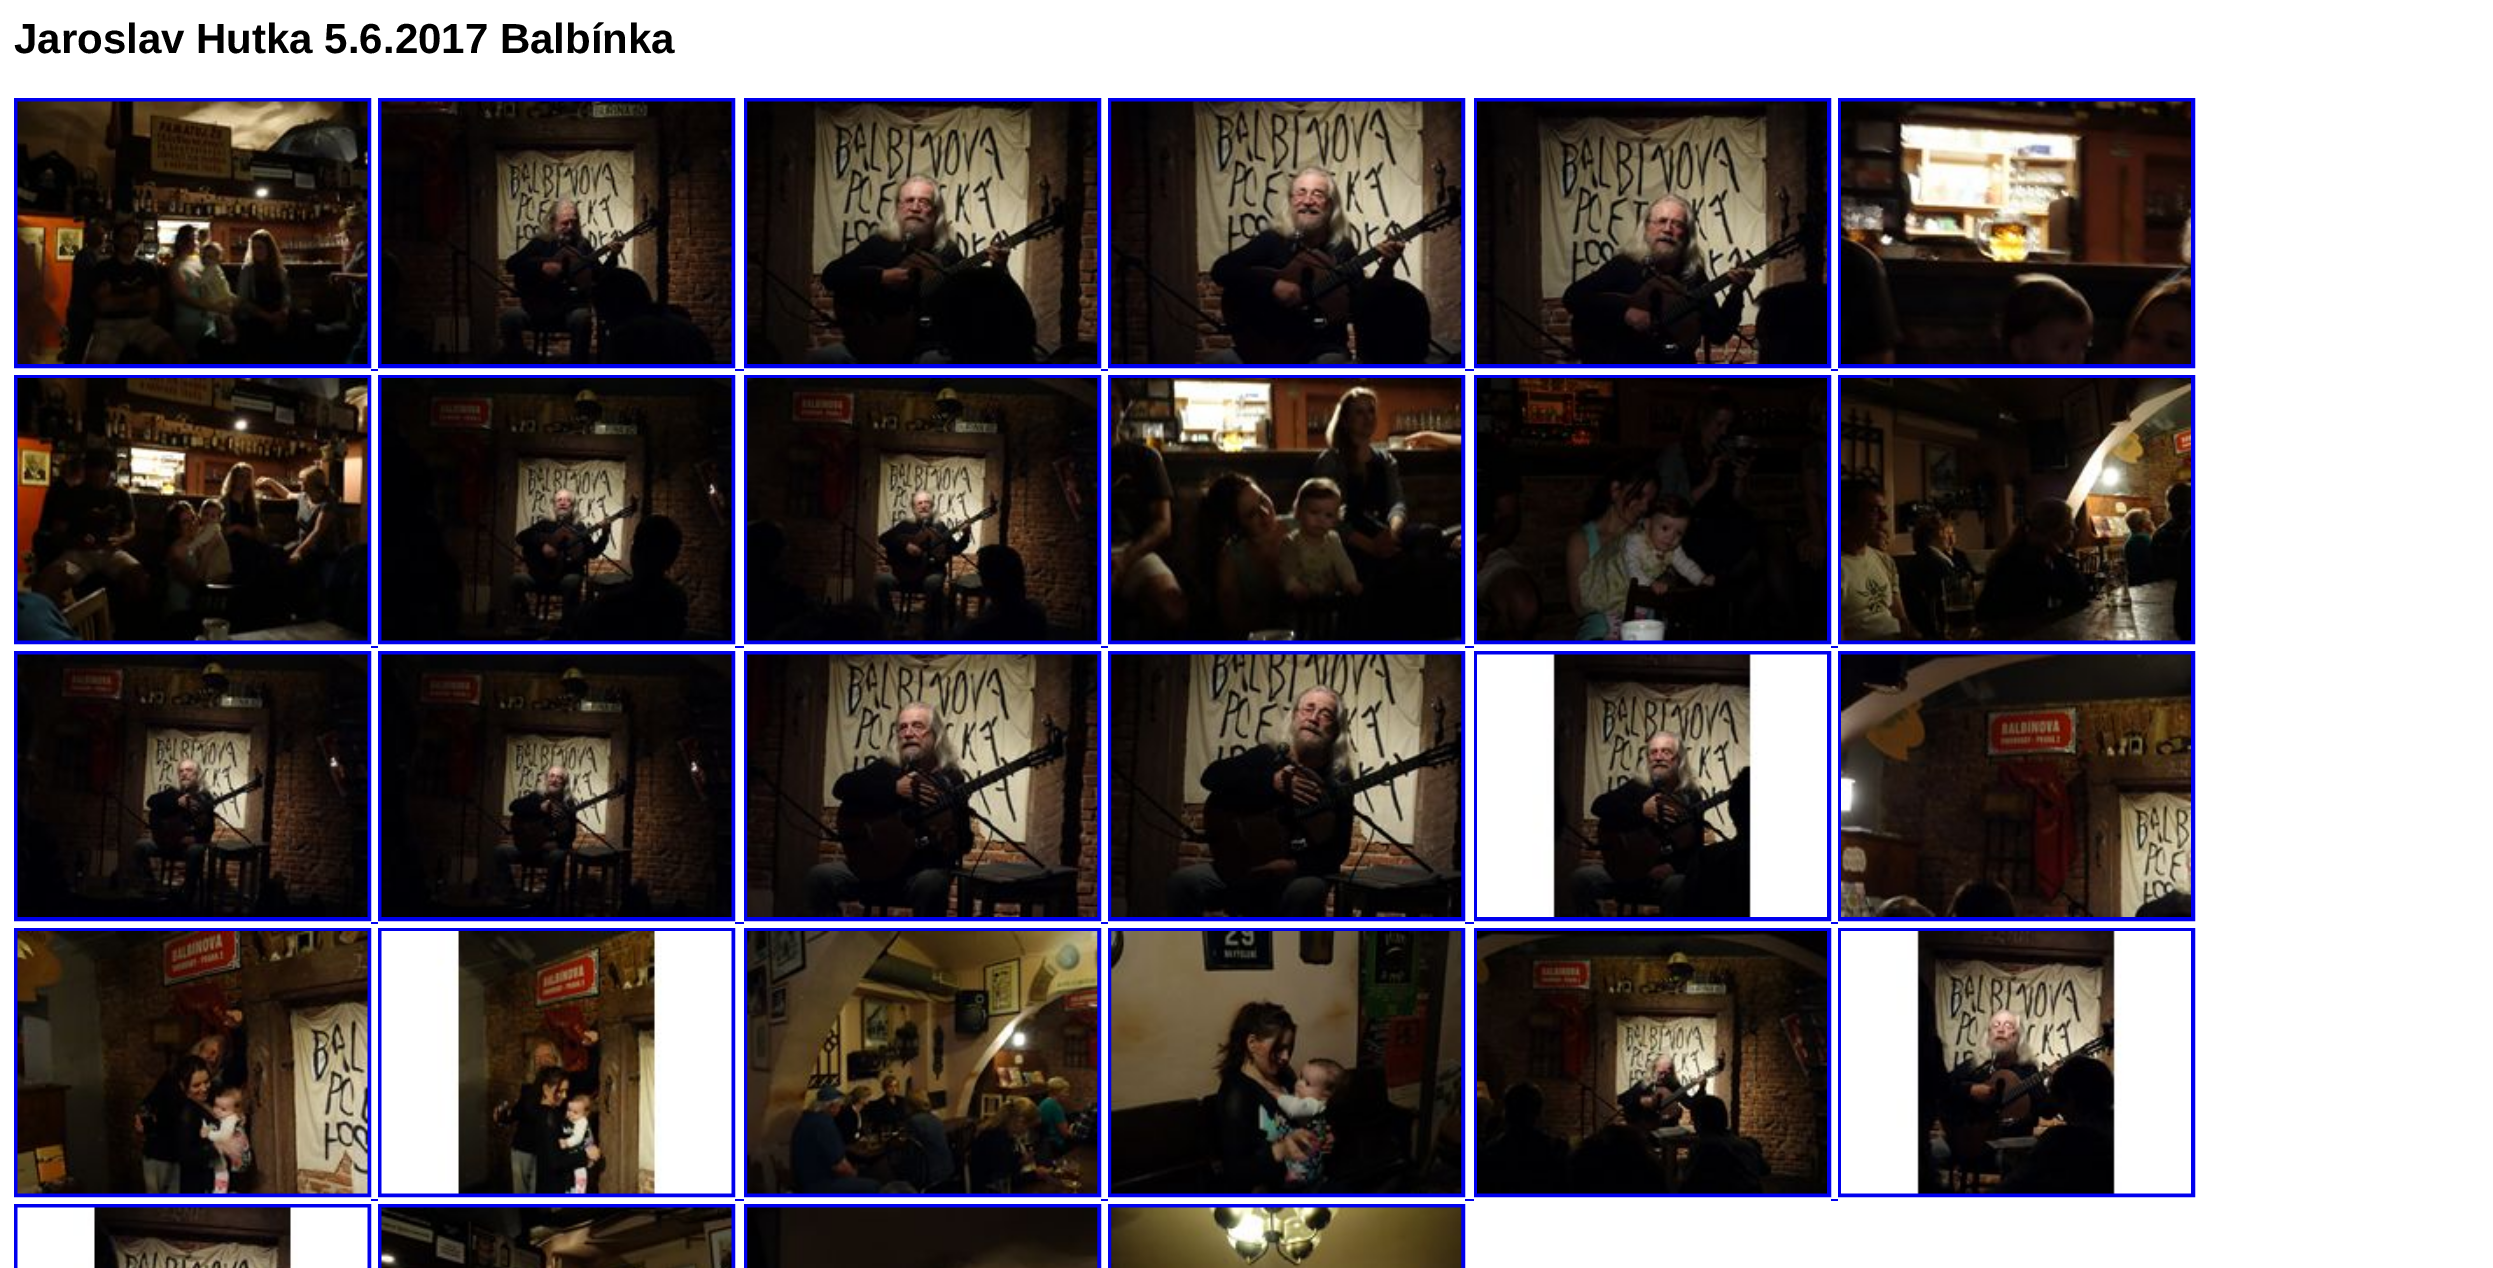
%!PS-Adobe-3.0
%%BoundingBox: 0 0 2493 1268
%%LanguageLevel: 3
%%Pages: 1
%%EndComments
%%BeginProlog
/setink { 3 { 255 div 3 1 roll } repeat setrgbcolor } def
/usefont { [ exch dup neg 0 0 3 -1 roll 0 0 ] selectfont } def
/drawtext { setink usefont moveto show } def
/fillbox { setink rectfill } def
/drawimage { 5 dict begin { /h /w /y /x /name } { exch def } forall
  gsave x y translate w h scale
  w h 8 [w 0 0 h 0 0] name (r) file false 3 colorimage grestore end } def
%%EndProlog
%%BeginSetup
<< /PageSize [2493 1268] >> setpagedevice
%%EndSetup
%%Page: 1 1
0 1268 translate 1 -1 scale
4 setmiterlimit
0 0 2493 1268 255 255 255 fillbox
(Jaroslav Hutka 5.6.2017 Balbínka) 14 53 /LiberationSans-Bold 42 0 0 0 drawtext
0 0 238 setink
4 setlinewidth
16 100 353 266 rectstroke
380 100 353 266 rectstroke
746 100 353 266 rectstroke
1110 100 353 266 rectstroke
1476 100 353 266 rectstroke
1840 100 353 266 rectstroke
(assets/img1.rgb) 17 101 351 263 drawimage
(assets/img2.rgb) 381 101 351 263 drawimage
(assets/img3.rgb) 747 101 351 263 drawimage
(assets/img4.rgb) 1111 101 351 263 drawimage
(assets/img5.rgb) 1477 101 350 263 drawimage
(assets/img6.rgb) 1841 101 350 263 drawimage
371 369 7 2 0 0 238 fillbox
735 369 9 2 0 0 238 fillbox
1101 369 7 2 0 0 238 fillbox
1465 369 9 2 0 0 238 fillbox
1831 369 7 2 0 0 238 fillbox
16 377 353 265 rectstroke
380 377 353 265 rectstroke
746 377 353 265 rectstroke
1110 377 353 265 rectstroke
1476 377 353 265 rectstroke
1840 377 353 265 rectstroke
(assets/img7.rgb) 17 378 351 263 drawimage
(assets/img8.rgb) 381 378 351 263 drawimage
(assets/img9.rgb) 747 378 351 263 drawimage
(assets/img10.rgb) 1111 378 351 263 drawimage
(assets/img11.rgb) 1477 378 350 263 drawimage
(assets/img12.rgb) 1841 378 350 263 drawimage
371 646 7 2 0 0 238 fillbox
735 646 9 2 0 0 238 fillbox
1101 646 7 2 0 0 238 fillbox
1465 646 9 2 0 0 238 fillbox
1831 646 7 2 0 0 238 fillbox
16 653 353 266 rectstroke
380 653 353 266 rectstroke
746 653 353 266 rectstroke
1110 653 353 266 rectstroke
1476 653 353 266 rectstroke
1840 653 353 266 rectstroke
(assets/img13.rgb) 17 654 351 263 drawimage
(assets/img14.rgb) 381 654 351 263 drawimage
(assets/img15.rgb) 747 654 351 263 drawimage
(assets/img16.rgb) 1111 654 351 263 drawimage
(assets/img17.rgb) 1477 654 350 263 drawimage
(assets/img18.rgb) 1841 654 350 263 drawimage
371 922 7 2 0 0 238 fillbox
735 922 9 2 0 0 238 fillbox
1101 922 7 2 0 0 238 fillbox
1465 922 9 2 0 0 238 fillbox
1831 922 7 2 0 0 238 fillbox
16 930 353 265 rectstroke
380 930 353 265 rectstroke
746 930 353 265 rectstroke
1110 930 353 265 rectstroke
1476 930 353 265 rectstroke
1840 930 353 265 rectstroke
(assets/img19.rgb) 17 931 351 263 drawimage
(assets/img20.rgb) 381 931 351 263 drawimage
(assets/img21.rgb) 747 931 351 263 drawimage
(assets/img22.rgb) 1111 931 351 263 drawimage
(assets/img23.rgb) 1477 931 350 263 drawimage
(assets/img24.rgb) 1841 931 350 263 drawimage
371 1199 7 2 0 0 238 fillbox
735 1199 9 2 0 0 238 fillbox
1101 1199 7 2 0 0 238 fillbox
1465 1199 9 2 0 0 238 fillbox
1831 1199 7 2 0 0 238 fillbox
16 1206 353 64 rectstroke
380 1206 353 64 rectstroke
746 1206 353 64 rectstroke
1110 1206 353 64 rectstroke
(assets/img25.rgb) 17 1207 351 61 drawimage
(assets/img26.rgb) 381 1207 351 61 drawimage
(assets/img27.rgb) 747 1207 351 61 drawimage
(assets/img28.rgb) 1111 1207 351 61 drawimage
showpage
%%EOF
